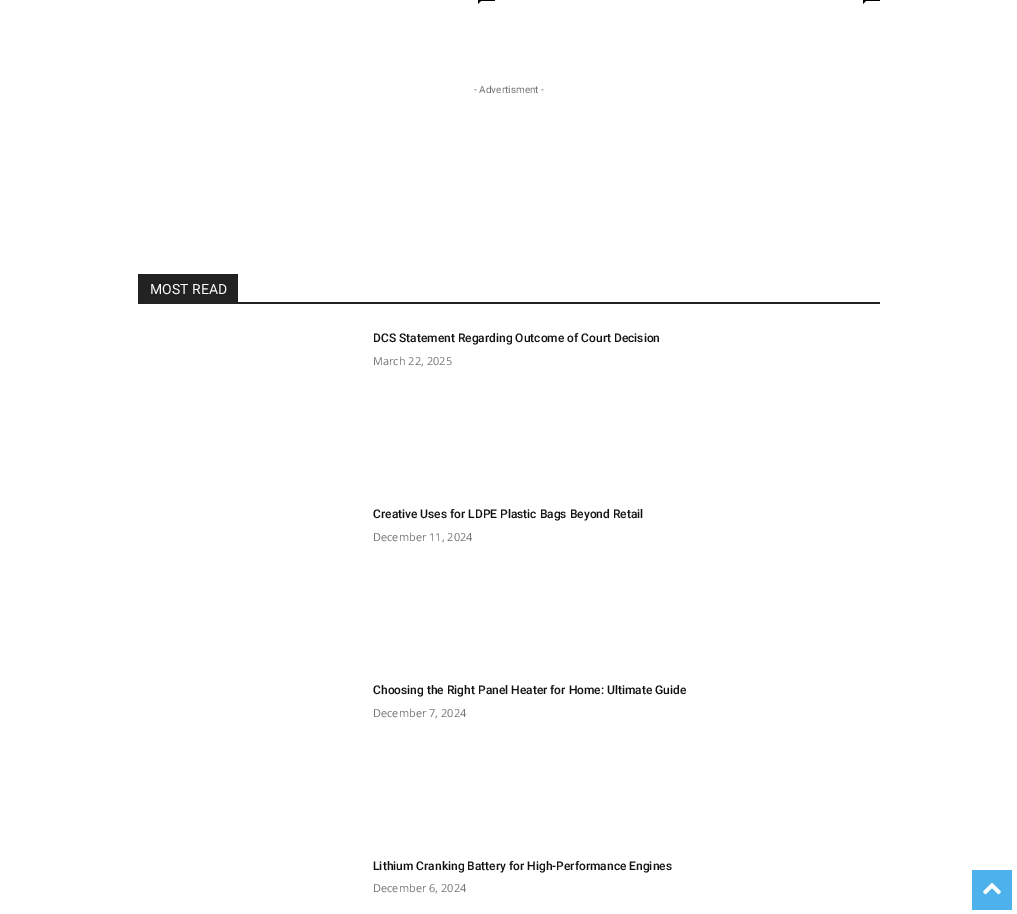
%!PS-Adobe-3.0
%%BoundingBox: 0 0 1017 914
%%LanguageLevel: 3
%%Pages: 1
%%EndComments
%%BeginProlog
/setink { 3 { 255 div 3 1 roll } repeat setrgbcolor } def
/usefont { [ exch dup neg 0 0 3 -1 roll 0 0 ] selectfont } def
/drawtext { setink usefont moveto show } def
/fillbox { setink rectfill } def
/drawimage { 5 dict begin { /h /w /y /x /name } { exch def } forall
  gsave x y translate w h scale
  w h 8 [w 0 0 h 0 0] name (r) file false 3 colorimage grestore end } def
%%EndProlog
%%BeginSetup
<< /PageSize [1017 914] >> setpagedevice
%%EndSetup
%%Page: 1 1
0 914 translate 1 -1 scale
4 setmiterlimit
0 0 1017 914 255 255 255 fillbox
478 0 17 1 0 0 0 fillbox
478 1 moveto 481 1 lineto 478 4 lineto closepath fill
863 0 17 1 0 0 0 fillbox
863 1 moveto 866 1 lineto 863 4 lineto closepath fill
(- Advertisment -) 474 93 /Roboto-Regular 10 118 118 118 drawtext
138 302 742 2 34 34 34 fillbox
138 274 100 28 34 34 34 fillbox
(MOST READ) 150 294 /Roboto-Regular 14 255 255 255 drawtext
(DCS Statement Regarding Outcome of Court Decision) 373 342 /Roboto-Medium 12 17 17 17 drawtext
(March 22, 2025) 373 365 /OpenSans-Regular 11 118 118 118 drawtext
(Creative Uses for LDPE Plastic Bags Beyond Retail) 373 518 /Roboto-Medium 12 17 17 17 drawtext
(December 11, 2024) 373 541 /OpenSans-Regular 11 118 118 118 drawtext
(Choosing the Right Panel Heater for Home: Ultimate Guide) 373 694 /Roboto-Medium 12 17 17 17 drawtext
(December 7, 2024) 373 717 /OpenSans-Regular 11 118 118 118 drawtext
(Lithium Cranking Battery for High-Performance Engines) 373 870 /Roboto-Medium 12 17 17 17 drawtext
(December 6, 2024) 373 892 /OpenSans-Regular 11 118 118 118 drawtext
972 870 40 40 77 178 236 fillbox
(assets/img1.rgb) 983 882 18 13 drawimage
showpage
%%EOF
